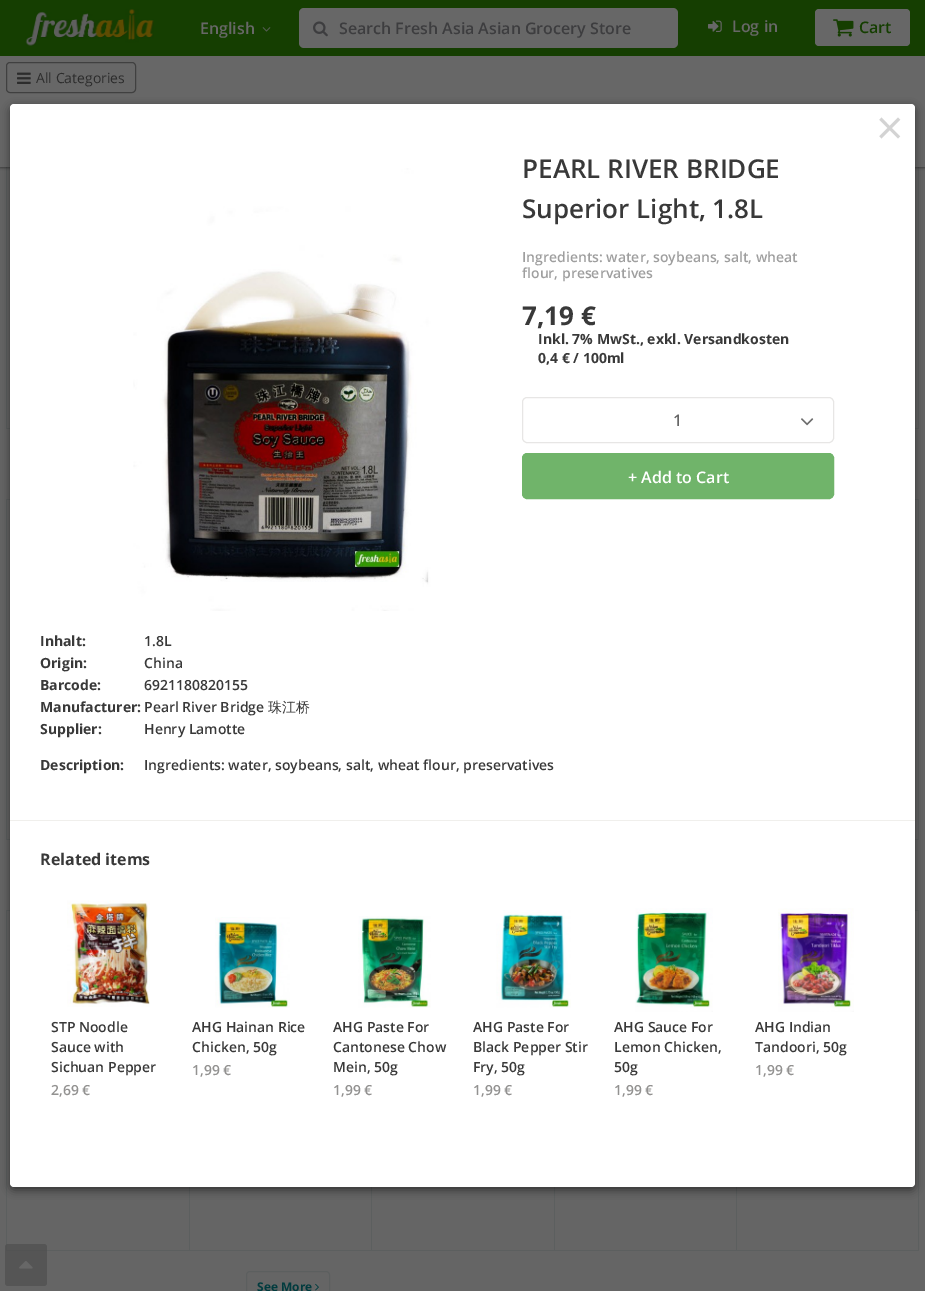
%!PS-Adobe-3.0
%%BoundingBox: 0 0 925 1291
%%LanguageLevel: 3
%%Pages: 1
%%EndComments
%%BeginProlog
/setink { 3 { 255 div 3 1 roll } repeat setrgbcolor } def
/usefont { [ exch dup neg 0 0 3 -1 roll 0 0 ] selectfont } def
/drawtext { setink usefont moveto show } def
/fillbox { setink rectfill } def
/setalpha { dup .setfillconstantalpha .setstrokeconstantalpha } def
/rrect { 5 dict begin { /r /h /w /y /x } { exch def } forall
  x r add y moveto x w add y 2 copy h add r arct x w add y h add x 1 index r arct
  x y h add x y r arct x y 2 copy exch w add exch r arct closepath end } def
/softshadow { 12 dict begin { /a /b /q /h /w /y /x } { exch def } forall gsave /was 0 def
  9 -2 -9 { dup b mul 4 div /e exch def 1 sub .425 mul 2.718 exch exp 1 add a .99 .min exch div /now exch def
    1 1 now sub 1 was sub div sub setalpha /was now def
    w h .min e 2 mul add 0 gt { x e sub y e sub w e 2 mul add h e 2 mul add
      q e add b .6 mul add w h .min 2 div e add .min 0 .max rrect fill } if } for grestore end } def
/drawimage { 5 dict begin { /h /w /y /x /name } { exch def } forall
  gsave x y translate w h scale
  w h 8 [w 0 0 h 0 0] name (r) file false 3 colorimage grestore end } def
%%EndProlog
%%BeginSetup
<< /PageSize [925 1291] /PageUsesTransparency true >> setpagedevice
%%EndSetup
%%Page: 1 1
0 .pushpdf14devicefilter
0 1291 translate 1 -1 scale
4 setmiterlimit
0 0 925 1291 101 101 101 fillbox
6 167 1 262 92 95 95 fillbox
918 167 1 261 92 95 95 fillbox
1 1 1 setink
0 57 925 111 0 1.5 0.26 softshadow
0 57 925 111 0 1 0.16 softshadow
0 0 925 56 21 62 1 fillbox
(assets/img1.rgb) 25 9 129 37 drawimage
(English) 200 34 /OpenSans-SemiBold 16 103 103 103 drawtext
(assets/img2.rgb) 262 27 9 5 drawimage
299 8 379 40 5 rrect fill
(assets/img3.rgb) 313 21 15 16 drawimage
(Search Fresh Asia Asian Grocery Store) 339 34 /OpenSans-SemiBold 16 61 61 63 drawtext
(assets/img4.rgb) 708 20 14 12 drawimage
(Log in) 732 32 /OpenSans-SemiBold 16 103 103 103 drawtext
815 9 95 37 4 rrect fill
(assets/img5.rgb) 833 19 21 18 drawimage
(Cart) 859 33 /OpenSans-SemiBold 16 21 62 1 drawtext
0 56 925 111 103 103 103 fillbox
64 64 64 setink
6.5 62.5 129 30 3.5 rrect stroke
(assets/img6.rgb) 17 72 14 12 drawimage
(All Categories) 36 83 /OpenSans-Regular 14 44 44 44 drawtext
6 428 4 1 92 95 95 fillbox
915 428 4 1 92 95 95 fillbox
6 499 4 1 92 95 95 fillbox
6 499 1 341 92 95 95 fillbox
915 499 4 1 92 95 95 fillbox
918 500 1 339 92 95 95 fillbox
6 839 4 1 92 95 95 fillbox
915 839 4 1 92 95 95 fillbox
6 910 4 1 92 95 95 fillbox
6 910 1 341 92 95 95 fillbox
189 1187 1 64 92 95 95 fillbox
371 1187 1 64 92 95 95 fillbox
554 1187 1 64 92 95 95 fillbox
915 910 4 1 92 95 95 fillbox
736 1187 1 64 92 95 95 fillbox
918 911 1 339 92 95 95 fillbox
0 0 0 setink
10 107 905 1083 4 4.5 0.5 softshadow
255 255 255 setink
10 104 905 1083 4 rrect fill
10 820 905 1 240 239 236 fillbox
(×) 876 145 /OpenSans-Regular 48 211 211 211 drawtext
(flour, preservatives) 522 278 /OpenSans-SemiBold 14 159 159 159 drawtext
(assets/img7.rgb) 133 168 389 443 drawimage
(PEARL RIVER BRIDGE) 522 178 /OpenSans-SemiBold 26 57 57 57 drawtext
(Superior Light, 1.8L) 522 218 /OpenSans-SemiBold 26 57 57 57 drawtext
(Ingredients: water, soybeans, salt, wheat) 522 262 /OpenSans-SemiBold 14 159 159 159 drawtext
(7,19 €) 522 325 /OpenSans-Bold 26 57 57 57 drawtext
(Inkl. 7% MwSt., exkl. Versandkosten) 538 344 /OpenSans-Bold 14 57 57 57 drawtext
(0,4 € / 100ml) 538 363 /OpenSans-Bold 14 57 57 57 drawtext
231 230 229 setink
522.5 397.5 311 45 4.5 rrect stroke
(1) 673 426 /OpenSans-SemiBold 16 103 103 103 drawtext
(assets/img8.rgb) 801 418 13 8 drawimage
112 180 106 setink
522.5 453.5 311 45 4.5 rrect gsave fill grestore
stroke
(+ Add to Cart) 628 483 /OpenSans-SemiBold 16 255 255 255 drawtext
(Inhalt:) 40 646 /OpenSans-Bold 14 57 57 57 drawtext
(1.8L) 144 646 /OpenSans-SemiBold 14 57 57 57 drawtext
(Origin:) 40 668 /OpenSans-Bold 14 57 57 57 drawtext
(China) 144 668 /OpenSans-SemiBold 14 57 57 57 drawtext
(Barcode:) 40 690 /OpenSans-Bold 14 57 57 57 drawtext
(6921180820155) 144 690 /OpenSans-SemiBold 14 57 57 57 drawtext
(Manufacturer:) 40 712 /OpenSans-Bold 14 57 57 57 drawtext
(Pearl River Bridge) 144 712 /OpenSans-SemiBold 14 57 57 57 drawtext
(珠江桥) 268 712 /WenQuanYiZenHei-Medium 14 57 57 57 drawtext
(Supplier:) 40 734 /OpenSans-Bold 14 57 57 57 drawtext
(Henry Lamotte) 144 734 /OpenSans-SemiBold 14 57 57 57 drawtext
(Description:) 40 770 /OpenSans-Bold 14 57 57 57 drawtext
(Ingredients: water, soybeans, salt, wheat flour, preservatives) 144 770 /OpenSans-SemiBold 14 57 57 57 drawtext
(Related items) 40 865 /OpenSans-Bold 16 57 57 57 drawtext
(assets/img9.rgb) 67 900 83 107 drawimage
(STP Noodle) 51 1032 /OpenSans-SemiBold 14 57 57 57 drawtext
(Sauce with) 51 1052 /OpenSans-SemiBold 14 57 57 57 drawtext
(Sichuan Pepper) 51 1072 /OpenSans-SemiBold 14 57 57 57 drawtext
(2,69 €) 51 1095 /OpenSans-SemiBold 14 147 146 145 drawtext
(assets/img10.rgb) 215 917 75 91 drawimage
(AHG Hainan Rice) 192 1032 /OpenSans-SemiBold 14 57 57 57 drawtext
(Chicken, 50g) 192 1052 /OpenSans-SemiBold 14 57 57 57 drawtext
(1,99 €) 192 1075 /OpenSans-SemiBold 14 147 146 145 drawtext
(assets/img11.rgb) 358 916 73 92 drawimage
(AHG Paste For) 333 1032 /OpenSans-SemiBold 14 57 57 57 drawtext
(Cantonese Chow) 333 1052 /OpenSans-SemiBold 14 57 57 57 drawtext
(Mein, 50g) 333 1072 /OpenSans-SemiBold 14 57 57 57 drawtext
(1,99 €) 333 1095 /OpenSans-SemiBold 14 147 146 145 drawtext
(assets/img12.rgb) 496 910 75 98 drawimage
(AHG Paste For) 473 1032 /OpenSans-SemiBold 14 57 57 57 drawtext
(Black Pepper Stir) 473 1052 /OpenSans-SemiBold 14 57 57 57 drawtext
(Fry, 50g) 473 1072 /OpenSans-SemiBold 14 57 57 57 drawtext
(1,99 €) 473 1095 /OpenSans-SemiBold 14 147 146 145 drawtext
(assets/img13.rgb) 635 908 78 104 drawimage
(AHG Sauce For) 614 1032 /OpenSans-SemiBold 14 57 57 57 drawtext
(Lemon Chicken,) 614 1052 /OpenSans-SemiBold 14 57 57 57 drawtext
(50g) 614 1072 /OpenSans-SemiBold 14 57 57 57 drawtext
(1,99 €) 614 1095 /OpenSans-SemiBold 14 147 146 145 drawtext
(assets/img14.rgb) 778 908 76 104 drawimage
(AHG Indian) 755 1032 /OpenSans-SemiBold 14 57 57 57 drawtext
(Tandoori, 50g) 755 1052 /OpenSans-SemiBold 14 57 57 57 drawtext
(1,99 €) 755 1075 /OpenSans-SemiBold 14 147 146 145 drawtext
6 1250 913 1 92 95 95 fillbox
0.7 setalpha
78 78 78 setink
5 1244 42 42 3 rrect fill
1 setalpha
(assets/img15.rgb) 19 1261 14 8 drawimage
92 95 95 setink
246.5 1271.5 83 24 3.5 rrect stroke
(See More) 257 1291 /OpenSans-Bold 12 1 59 62 drawtext
(assets/img16.rgb) 315 1283 4 8 drawimage
.poppdf14devicefilter showpage
%%EOF
